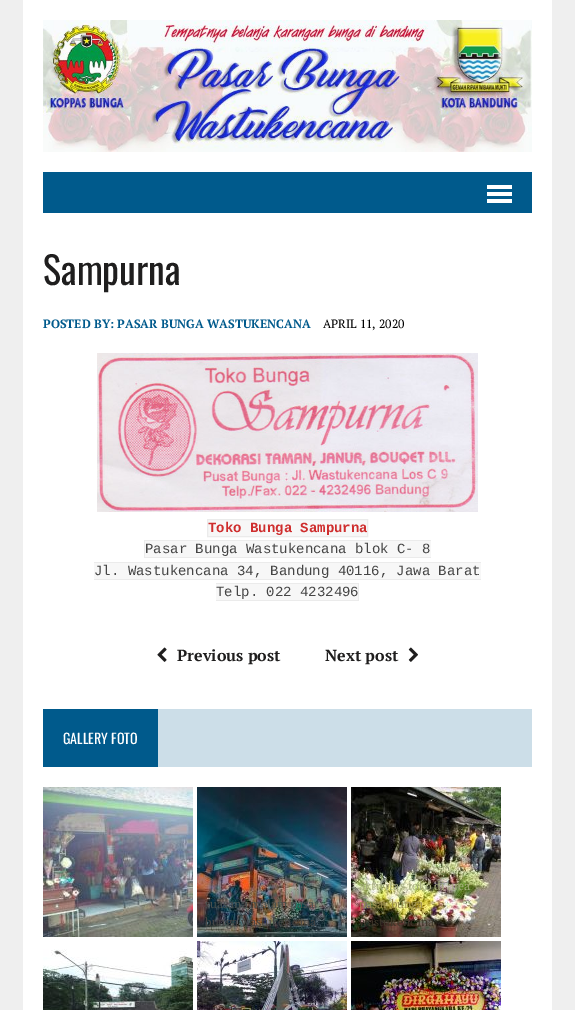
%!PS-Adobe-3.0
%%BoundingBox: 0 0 575 1010
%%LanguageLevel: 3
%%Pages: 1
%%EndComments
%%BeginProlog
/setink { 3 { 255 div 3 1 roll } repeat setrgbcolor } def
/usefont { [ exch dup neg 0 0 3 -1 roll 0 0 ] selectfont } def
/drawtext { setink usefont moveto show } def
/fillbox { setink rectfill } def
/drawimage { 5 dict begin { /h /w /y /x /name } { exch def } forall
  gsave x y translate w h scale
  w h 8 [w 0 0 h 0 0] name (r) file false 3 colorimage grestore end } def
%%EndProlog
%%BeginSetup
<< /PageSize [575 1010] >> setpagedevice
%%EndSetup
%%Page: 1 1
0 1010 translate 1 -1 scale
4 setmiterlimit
0 0 575 1010 239 239 239 fillbox
23 0 529 1010 255 255 255 fillbox
(assets/img1.rgb) 43 20 489 132 drawimage
43 172 489 41 0 90 140 fillbox
487 185 25 4 255 255 255 fillbox
487 192 25 4 255 255 255 fillbox
487 199 25 4 255 255 255 fillbox
(Sampurna) 43 285 /Oswald-Regular 38 31 30 30 drawtext
(POSTED BY: PASAR BUNGA WASTUKENCANA) 43 328 /PTSerif-Bold 12 0 90 140 drawtext
(APRIL 11, 2020) 323 328 /PTSerif-Regular 12 0 0 0 drawtext
(assets/img2.rgb) 97 353 381 159 drawimage
247 247 247 setink
207.5 519.5 moveto 367.5 519.5 lineto 367.5 536.5 lineto 207.5 536.5 lineto closepath gsave fill grestore
235 235 235 setink
stroke
(Toko Bunga Sampurna) 208 532 /LiberationMono-Bold 14 207 46 46 drawtext
145 541 286 16 247 247 247 fillbox
(Pasar Bunga Wastukencana blok C- 8) 145 553 /LiberationMono-Regular 14 69 69 69 drawtext
144 540 287 1 235 235 235 fillbox
144 557 287 1 235 235 235 fillbox
144 540 1 18 235 235 235 fillbox
94 563 387 16 247 247 247 fillbox
(Jl. Wastukencana 34, Bandung 40116, Jawa Barat) 94 575 /LiberationMono-Regular 14 69 69 69 drawtext
94 562 387 1 235 235 235 fillbox
94 579 387 1 235 235 235 fillbox
216 584 142 16 247 247 247 fillbox
(Telp. 022 4232496) 216 596 /LiberationMono-Regular 14 69 69 69 drawtext
216 583 142 1 235 235 235 fillbox
216 600 142 1 235 235 235 fillbox
358 583 1 18 235 235 235 fillbox
(assets/img3.rgb) 157 647 10 15 drawimage
(Previous post) 177 661 /PTSerif-Bold 16 31 30 30 drawtext
(Next post) 325 661 /PTSerif-Bold 16 31 30 30 drawtext
(assets/img4.rgb) 408 647 10 15 drawimage
158 709 374 58 204 222 232 fillbox
43 709 115 58 0 90 140 fillbox
(GALLERY FOTO) 63 744 /Oswald-Regular 14 255 255 255 drawtext
(assets/img5.rgb) 43 787 150 150 drawimage
(assets/img6.rgb) 197 787 150 150 drawimage
(suasana malam pasar) 205 908 /PTSerif-Regular 12 72 80 78 drawtext
(bunga wastukencana) 205 926 /PTSerif-Regular 12 69 69 69 drawtext
(assets/img7.rgb) 351 787 150 150 drawimage
(aktivitas toko di area) 359 890 /PTSerif-Regular 12 167 174 126 drawtext
(pasar bunga) 359 908 /PTSerif-Regular 12 157 143 80 drawtext
(wastukencana) 359 926 /PTSerif-Regular 12 63 55 42 drawtext
(assets/img8.rgb) 43 949 150 61 drawimage
(assets/img9.rgb) 197 941 150 69 drawimage
(assets/img10.rgb) 351 941 150 69 drawimage
showpage
%%EOF
